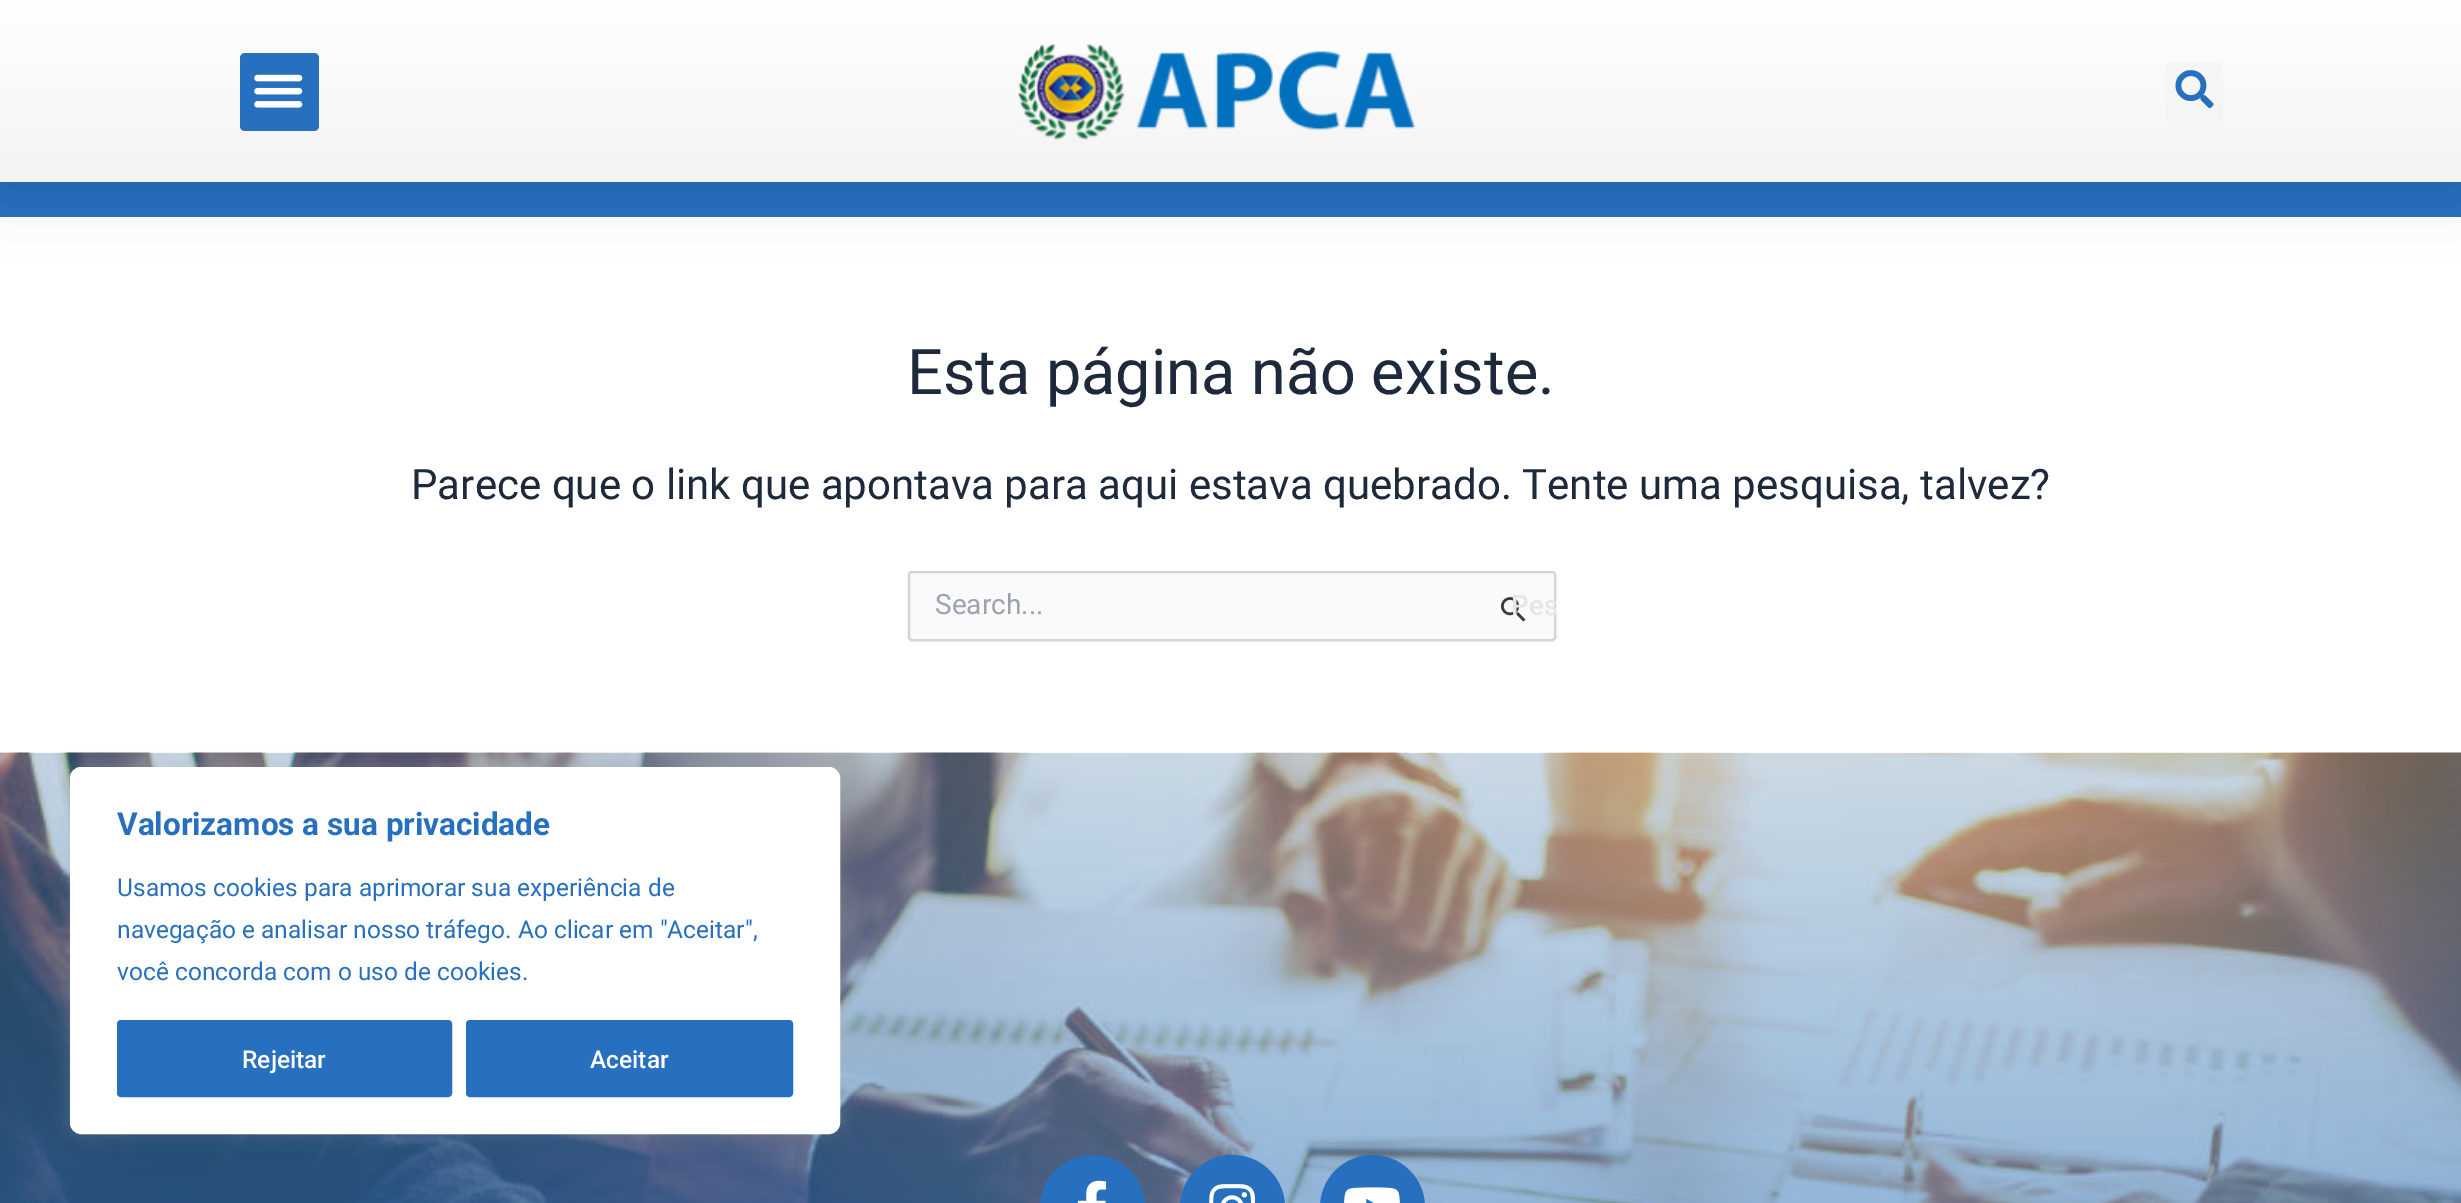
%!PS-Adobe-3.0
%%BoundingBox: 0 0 2461 1203
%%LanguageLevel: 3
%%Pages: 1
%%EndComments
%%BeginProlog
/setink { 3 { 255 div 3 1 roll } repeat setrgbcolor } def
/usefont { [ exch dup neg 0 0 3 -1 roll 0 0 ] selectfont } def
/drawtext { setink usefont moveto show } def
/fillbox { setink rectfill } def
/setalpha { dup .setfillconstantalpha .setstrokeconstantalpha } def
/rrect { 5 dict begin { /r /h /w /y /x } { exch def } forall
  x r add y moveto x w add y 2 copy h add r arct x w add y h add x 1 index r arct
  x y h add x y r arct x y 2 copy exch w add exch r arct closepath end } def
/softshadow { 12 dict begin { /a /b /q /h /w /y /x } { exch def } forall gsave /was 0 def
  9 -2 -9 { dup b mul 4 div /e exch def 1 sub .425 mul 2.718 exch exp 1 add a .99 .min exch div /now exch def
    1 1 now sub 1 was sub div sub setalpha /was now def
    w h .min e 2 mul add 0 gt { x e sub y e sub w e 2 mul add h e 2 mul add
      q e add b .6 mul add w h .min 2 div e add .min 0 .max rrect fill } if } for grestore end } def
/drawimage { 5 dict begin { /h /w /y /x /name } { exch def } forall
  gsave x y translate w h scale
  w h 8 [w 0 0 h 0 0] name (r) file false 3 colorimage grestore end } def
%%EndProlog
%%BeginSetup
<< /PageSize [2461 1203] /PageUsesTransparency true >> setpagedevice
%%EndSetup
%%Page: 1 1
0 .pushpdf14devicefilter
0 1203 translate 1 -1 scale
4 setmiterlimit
0 0 2461 1203 255 255 255 fillbox
0 182 2461 35 39 112 191 fillbox
0 0 0 setink
0 0 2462 182 0 35 0.16 softshadow
gsave 0 0 moveto 2461 0 lineto 2461 182 lineto 0 182 lineto closepath clip newpath
<< /ShadingType 2 /ColorSpace /DeviceRGB /Coords [1231 0 1231 182] /Extend [true true] /Function << /FunctionType 2 /Domain [0 1] /C0 [1 1 1] /C1 [0.953 0.953 0.953] /N 1 >> >> shfill grestore
39 112 191 setink
240 53 79 78 5 rrect fill
(assets/img1.rgb) 254 74 49 34 drawimage
(assets/img2.rgb) 1018 44 397 96 drawimage
245 245 243 setink
2165 63 58 58 5 rrect fill
(assets/img3.rgb) 2175 70 39 39 drawimage
(Esta página não existe.) 907 394 /Roboto-Regular 63 30 41 59 drawtext
(Parece que o link que apontava para aqui estava quebrado. Tente uma pesquisa, talvez?) 411 499 /Roboto-Regular 42 30 41 59 drawtext
0 0 0 setink
908 572 648 70 4 2 0.05 softshadow
250 250 250 setink
909 572 646 68 3 rrect gsave fill grestore
209 213 219 setink
2 setlinewidth
stroke
(Search...) 935 614 /Roboto-Regular 28 156 163 175 drawtext
(assets/img4.rgb) 1501 597 25 25 drawimage
gsave
1477 571 79 73 4 rrect clip newpath
(Pes) 1511 615 /Roboto-Medium 28 229 230 230 drawtext
grestore
(assets/img5.rgb) 0 752 2461 451 drawimage
39 112 191 setink
1040 1155 105 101 52.5 rrect fill
(assets/img6.rgb) 1077 1180 30 23 drawimage
1180 1155 105 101 52.5 rrect fill
(assets/img7.rgb) 1209 1184 46 19 drawimage
1320 1155 105 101 52.5 rrect fill
(assets/img8.rgb) 1344 1187 56 16 drawimage
172 171 171 setink
70 765 770 367 11 9 0.3 softshadow
255 255 255 setink
71 768 768 365 10 rrect gsave fill grestore
stroke
(Valorizamos a sua privacidade) 117 835 /Roboto-Bold 31.5 39 112 191 drawtext
(Usamos cookies para aprimorar sua experiência de) 117 896 /Roboto-Regular 24.5 39 112 191 drawtext
(navegação e analisar nosso tráfego. Ao clicar em "Aceitar",) 117 938 /Roboto-Regular 24.5 39 112 191 drawtext
(você concorda com o uso de cookies.) 117 980 /Roboto-Regular 24.5 39 112 191 drawtext
119 1022 331 73 2 rrect gsave fill grestore
4 setlinewidth
stroke
(Rejeitar) 242 1068 /Roboto-Medium 24.5 255 255 255 drawtext
39 112 191 setink
468 1022 323 73 2 rrect gsave fill grestore
stroke
(Aceitar) 590 1068 /Roboto-Medium 24.5 255 255 255 drawtext
.poppdf14devicefilter showpage
%%EOF
